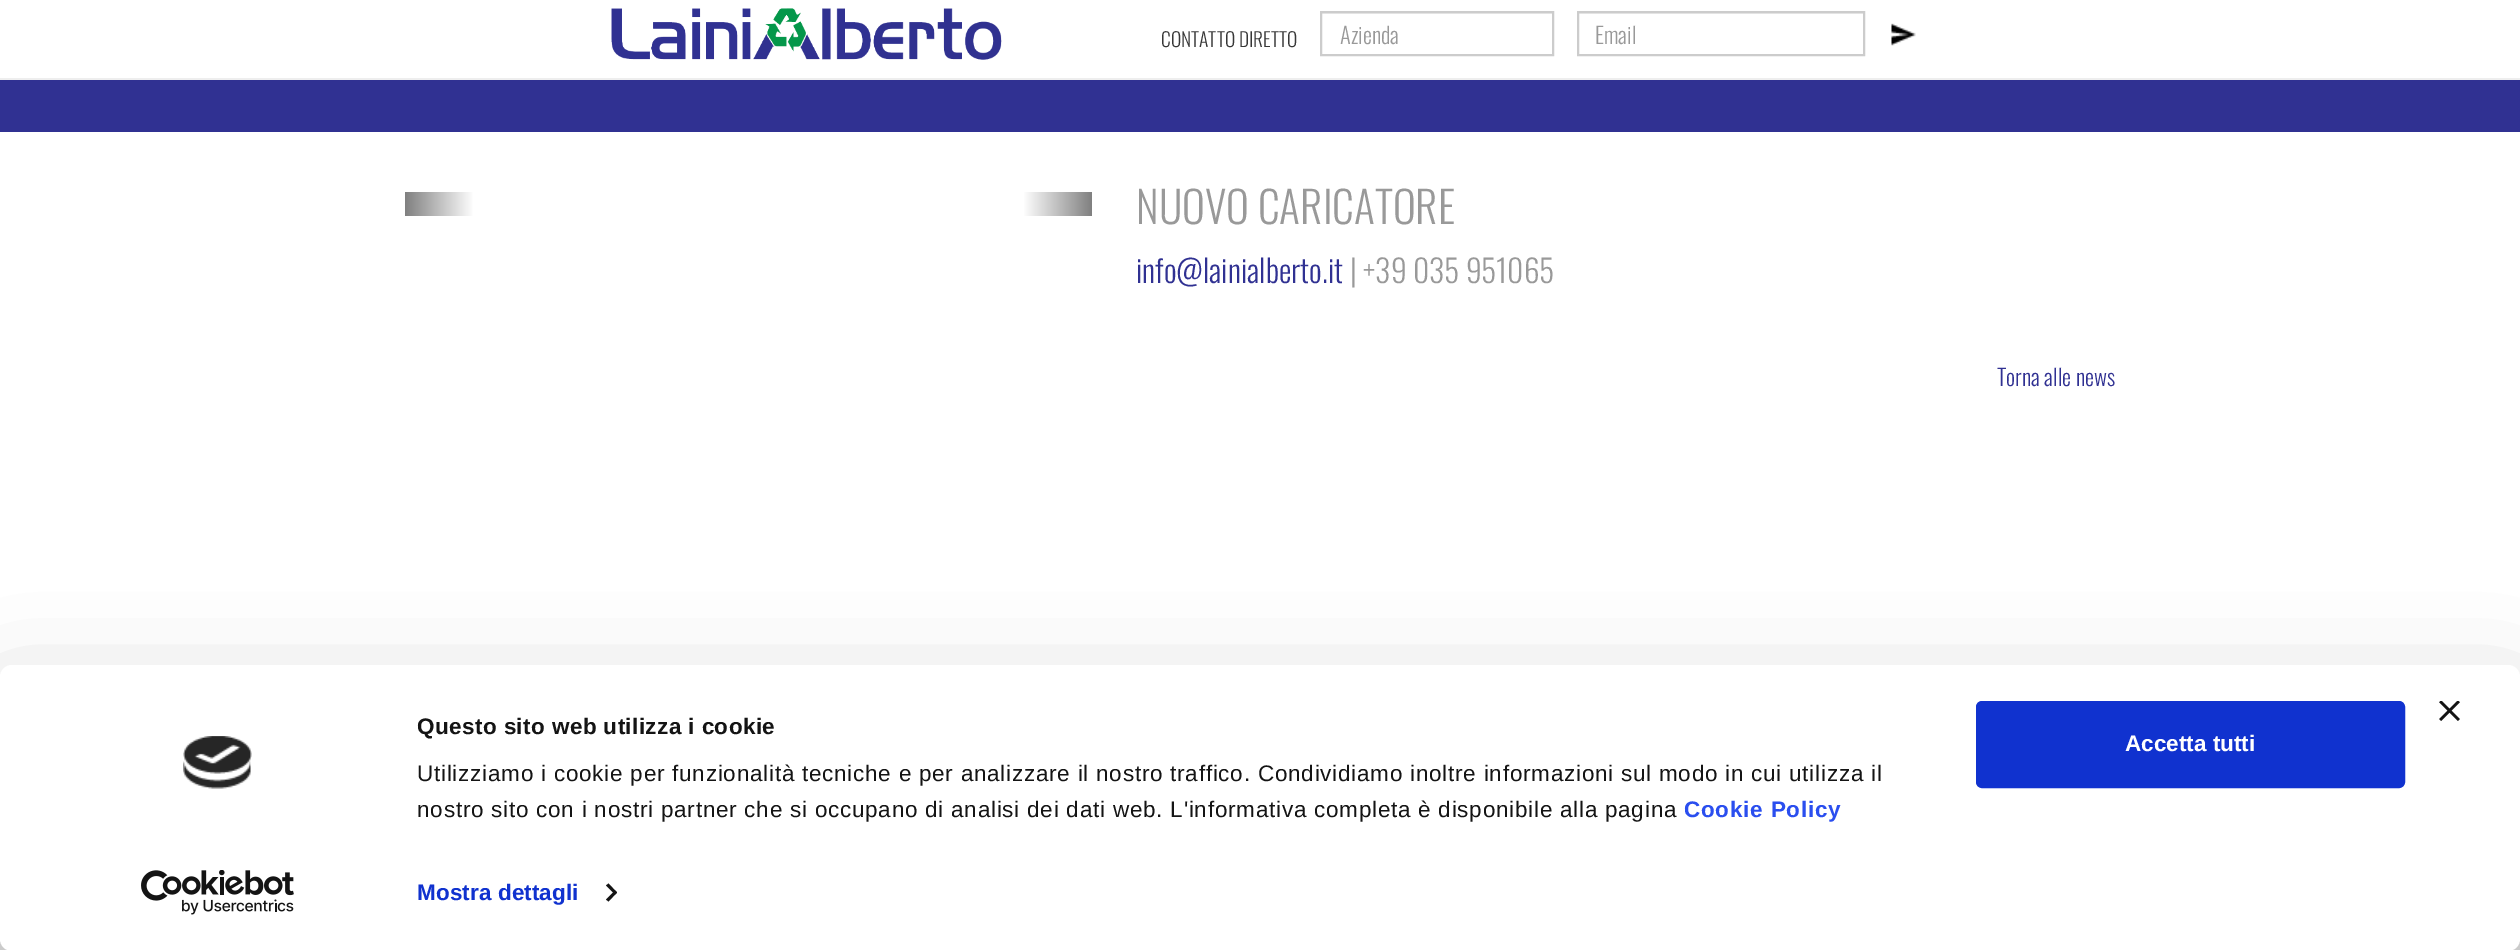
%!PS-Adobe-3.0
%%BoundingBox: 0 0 2520 950
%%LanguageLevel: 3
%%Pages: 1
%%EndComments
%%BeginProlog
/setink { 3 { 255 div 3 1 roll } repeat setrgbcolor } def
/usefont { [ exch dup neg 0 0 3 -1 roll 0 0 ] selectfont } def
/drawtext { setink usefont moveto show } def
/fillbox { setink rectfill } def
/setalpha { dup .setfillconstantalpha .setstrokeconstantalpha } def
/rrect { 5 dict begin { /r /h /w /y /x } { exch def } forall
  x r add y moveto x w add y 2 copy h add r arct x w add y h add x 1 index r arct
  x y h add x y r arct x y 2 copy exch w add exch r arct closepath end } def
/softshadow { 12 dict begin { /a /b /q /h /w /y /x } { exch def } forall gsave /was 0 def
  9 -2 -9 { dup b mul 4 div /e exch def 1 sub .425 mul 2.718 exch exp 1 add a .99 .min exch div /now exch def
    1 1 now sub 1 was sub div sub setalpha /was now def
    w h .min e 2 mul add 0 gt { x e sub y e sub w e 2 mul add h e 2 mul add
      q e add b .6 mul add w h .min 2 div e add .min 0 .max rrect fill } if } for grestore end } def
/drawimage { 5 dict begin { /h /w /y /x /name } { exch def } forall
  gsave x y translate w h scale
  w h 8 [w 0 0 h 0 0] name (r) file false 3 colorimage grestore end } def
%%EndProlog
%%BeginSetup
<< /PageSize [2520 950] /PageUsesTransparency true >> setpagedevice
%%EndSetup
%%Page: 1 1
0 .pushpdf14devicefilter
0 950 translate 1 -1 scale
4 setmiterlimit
0 0 2520 950 255 255 255 fillbox
0 78 2520 2 238 238 238 fillbox
(assets/img1.rgb) 611 8 391 52 drawimage
(CONTATTO DIRETTO) 1161 47 /Oswald-Light 19.5 55 55 55 drawtext
1322 13 231 1 236 236 236 fillbox
204 204 204 setink
2 setlinewidth
1321 12 232 43 rectstroke
(Azienda) 1340 44 /Oswald-Light 22.5 153 153 153 drawtext
1578 13 285 1 236 236 236 fillbox
204 204 204 setink
1578 12 286 43 rectstroke
(Email) 1595 44 /Oswald-Light 22.5 153 153 153 drawtext
(assets/img2.rgb) 1891 23 25 23 drawimage
0 80 2520 52 48 49 146 fillbox
gsave 405 192 moveto 473 192 lineto 473 216 lineto 405 216 lineto closepath clip newpath
<< /ShadingType 2 /ColorSpace /DeviceRGB /Coords [405 204 474 204] /Extend [true true] /Function << /FunctionType 2 /Domain [0 1] /C0 [0.502 0.502 0.502] /C1 [1 1 1] /N 1 >> >> shfill grestore
gsave 1024 192 moveto 1092 192 lineto 1092 216 lineto 1024 216 lineto closepath clip newpath
<< /ShadingType 2 /ColorSpace /DeviceRGB /Coords [1023 204 1092 204] /Extend [true true] /Function << /FunctionType 2 /Domain [0 1] /C0 [1 1 1] /C1 [0.502 0.502 0.502] /N 1 >> >> shfill grestore
(NUOVO CARICATORE) 1136 224 /Oswald-Light 43.5 153 153 153 drawtext
(info@lainialberto.it) 1136 283 /Oswald-Light 31.5 48 49 146 drawtext
(| +39 035 951065) 1350 283 /Oswald-Light 31.5 153 153 153 drawtext
(Torna alle news) 1997 386 /Oswald-Light 22.5 48 49 146 drawtext
0 939 2520 11 238 238 238 fillbox
0 0 0 setink
0 710 2520 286 12 52.5 0.3 softshadow
255 255 255 setink
0 665 2520 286 12 rrect fill
(assets/img3.rgb) 2439 701 21 20 drawimage
(assets/img4.rgb) 183 736 69 53 drawimage
(assets/img5.rgb) 141 870 153 45 drawimage
/LiberationSans-Bold 22.5 usefont
20 20 20 setink
417 734 moveto 0.4 0 (Questo sito web utilizza i cookie) ashow
/LiberationSans-Regular 22.5 usefont
417 781 moveto 0.75 0 (Utilizziamo i cookie per funzionalità tecniche e per analizzare il nostro traffico. Condividiamo inoltre informazioni sul modo in cui utilizza il) ashow
417 817 moveto 0.75 0 (nostro sito con i nostri partner che si occupano di analisi dei dati web. L'informativa completa è disponibile alla pagina) ashow
/LiberationSans-Bold 22.5 usefont
42 78 239 setink
1684 817 moveto 0.75 0 (Cookie Policy) ashow
16 50 207 setink
417 900 moveto 0.1 0 (Mostra dettagli) ashow
20 20 20 setink
608.5 883.5 moveto 617 892.5 lineto 615 894.5 lineto 606 885.5 lineto closepath fill
615 890.5 moveto 617 892.5 lineto 608.5 901.5 lineto 606 899.5 lineto closepath fill
16 50 207 setink
1977.5 702.5 426 84 4.5 rrect gsave fill grestore
3 setlinewidth
stroke
(Accetta tutti) 2125 751 /LiberationSans-Bold 22.5 255 255 255 drawtext
.poppdf14devicefilter showpage
%%EOF
